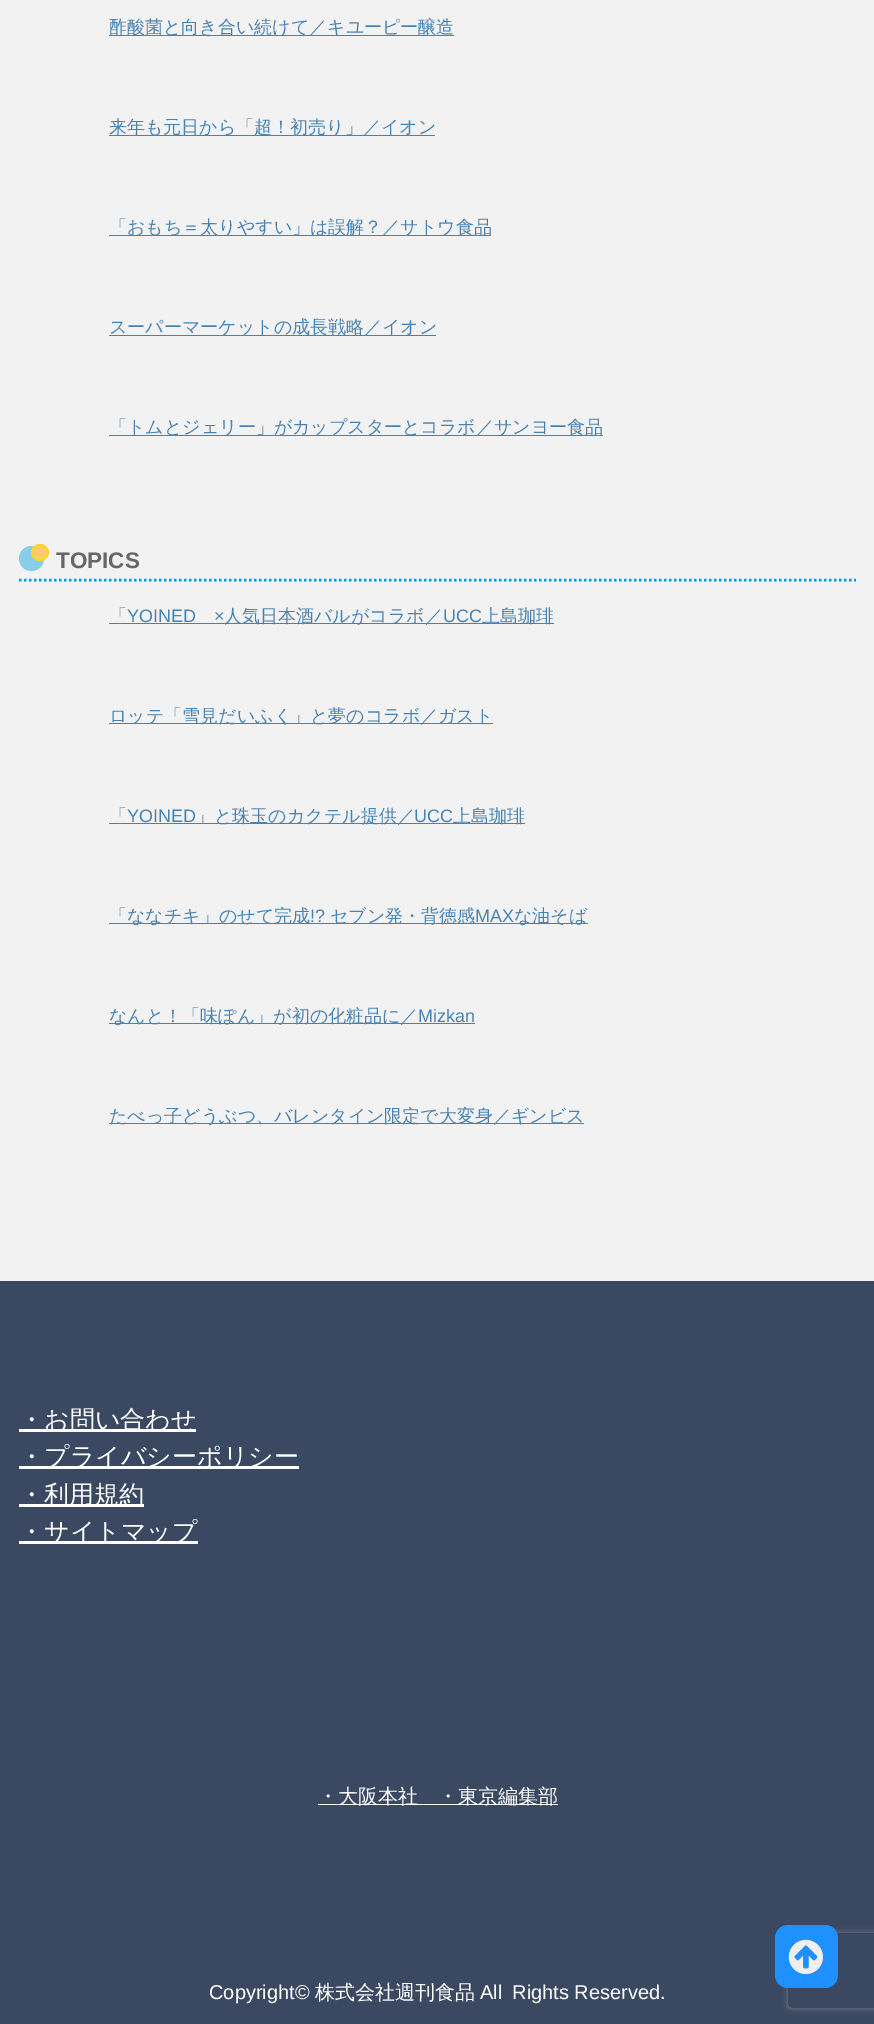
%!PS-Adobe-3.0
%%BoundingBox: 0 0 874 2024
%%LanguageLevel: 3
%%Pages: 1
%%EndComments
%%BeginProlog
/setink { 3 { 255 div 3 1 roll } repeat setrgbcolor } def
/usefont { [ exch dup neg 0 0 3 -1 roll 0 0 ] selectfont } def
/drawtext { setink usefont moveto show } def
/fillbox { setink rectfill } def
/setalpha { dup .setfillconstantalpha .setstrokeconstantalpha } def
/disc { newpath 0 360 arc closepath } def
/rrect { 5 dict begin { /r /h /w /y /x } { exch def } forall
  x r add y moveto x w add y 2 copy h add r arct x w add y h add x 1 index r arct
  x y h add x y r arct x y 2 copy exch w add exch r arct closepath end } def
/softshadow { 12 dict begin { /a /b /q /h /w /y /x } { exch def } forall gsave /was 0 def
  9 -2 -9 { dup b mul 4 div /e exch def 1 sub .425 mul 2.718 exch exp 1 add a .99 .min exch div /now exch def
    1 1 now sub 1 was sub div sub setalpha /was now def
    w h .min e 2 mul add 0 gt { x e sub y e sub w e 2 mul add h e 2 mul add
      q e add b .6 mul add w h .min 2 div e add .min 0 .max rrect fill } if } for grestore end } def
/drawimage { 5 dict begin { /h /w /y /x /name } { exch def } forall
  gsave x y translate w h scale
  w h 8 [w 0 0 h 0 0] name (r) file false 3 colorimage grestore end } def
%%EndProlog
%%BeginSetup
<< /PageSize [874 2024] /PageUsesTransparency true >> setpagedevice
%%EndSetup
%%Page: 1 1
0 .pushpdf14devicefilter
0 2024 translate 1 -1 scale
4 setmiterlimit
0 0 874 2024 242 242 242 fillbox
109 35 345 1 70 130 180 fillbox
(酢酸菌と向き合い続けて／キユーピー醸造) 109 33 /WenQuanYiZenHei-Medium 18 70 130 180 drawtext
109 135 326 1 70 130 180 fillbox
(来年も元日から「超！初売り」／イオン) 109 133 /WenQuanYiZenHei-Medium 18 70 130 180 drawtext
109 235 382 1 70 130 180 fillbox
(「おもち＝太りやすい」は誤解？／サトウ食品) 109 233 /WenQuanYiZenHei-Medium 18 70 130 180 drawtext
109 335 327 1 70 130 180 fillbox
(スーパーマーケットの成長戦略／イオン) 109 333 /WenQuanYiZenHei-Medium 18 70 130 180 drawtext
109 435 494 1 70 130 180 fillbox
(「トムとジェリー」がカップスターとコラボ／サンヨー食品) 109 433 /WenQuanYiZenHei-Medium 18 70 130 180 drawtext
3 155 229 setink
2.5 setlinewidth
[2.5 2.5] 0 setdash
19 580 moveto 856 580 lineto stroke
135 206 235 setink
31.5 558.5 12.5 disc fill
255 199 120 setink
32.5 545.5 15 14 7 rrect gsave fill grestore
249 214 53 setink
3 setlinewidth
[] 0 setdash
stroke
(TOPICS) 56 568 /LiberationSans-Bold 22.5 102 102 102 drawtext
(「) 109 622 /WenQuanYiZenHei-Medium 18 70 130 180 drawtext
(YOINED) 127 622 /LiberationSans-Regular 18 70 130 180 drawtext
(×) 214 622 /LiberationSans-Regular 18 70 130 180 drawtext
109 623 445 1 70 130 180 fillbox
(人気日本酒バルがコラボ／) 224 622 /WenQuanYiZenHei-Medium 18 70 130 180 drawtext
(UCC) 443 622 /LiberationSans-Regular 18 70 130 180 drawtext
(上島珈琲) 482 622 /WenQuanYiZenHei-Medium 18 70 130 180 drawtext
109 723 384 1 70 130 180 fillbox
(ロッテ「雪見だいふく」と夢のコラボ／ガスト) 109 722 /WenQuanYiZenHei-Medium 18 70 130 180 drawtext
(「) 109 822 /WenQuanYiZenHei-Medium 18 70 130 180 drawtext
(YOINED) 127 822 /LiberationSans-Regular 18 70 130 180 drawtext
109 823 416 1 70 130 180 fillbox
(」と珠玉のカクテル提供／) 196 822 /WenQuanYiZenHei-Medium 18 70 130 180 drawtext
(UCC) 414 822 /LiberationSans-Regular 18 70 130 180 drawtext
(上島珈琲) 453 822 /WenQuanYiZenHei-Medium 18 70 130 180 drawtext
109 923 479 1 70 130 180 fillbox
(「ななチキ」のせて完成) 109 922 /WenQuanYiZenHei-Medium 18 70 130 180 drawtext
(!?) 310 922 /LiberationSans-Regular 18 70 130 180 drawtext
(セブン発・背徳感) 330 922 /WenQuanYiZenHei-Medium 18 70 130 180 drawtext
(MAX) 475 922 /LiberationSans-Regular 18 70 130 180 drawtext
(な油そば) 514 922 /WenQuanYiZenHei-Medium 18 70 130 180 drawtext
109 1023 366 1 70 130 180 fillbox
(なんと！「味ぽん」が初の化粧品に／) 109 1022 /WenQuanYiZenHei-Medium 18 70 130 180 drawtext
(Mizkan) 418 1022 /LiberationSans-Regular 18 70 130 180 drawtext
109 1123 475 1 70 130 180 fillbox
(たべっ子どうぶつ、バレンタイン限定で大変身／ギンビス) 109 1122 /WenQuanYiZenHei-Medium 18 70 130 180 drawtext
0 1281 874 743 58 72 97 fillbox
19 1429 177 3 255 255 255 fillbox
(・お問い合わせ) 19 1428 /WenQuanYiZenHei-Medium 25 255 255 255 drawtext
19 1466 280 3 255 255 255 fillbox
(・プライバシーポリシー) 19 1465 /WenQuanYiZenHei-Medium 25 255 255 255 drawtext
19 1504 125 3 255 255 255 fillbox
(・利用規約) 19 1503 /WenQuanYiZenHei-Medium 25 255 255 255 drawtext
19 1541 179 3 255 255 255 fillbox
(・サイトマップ) 19 1540 /WenQuanYiZenHei-Medium 25 255 255 255 drawtext
318 1804 240 1 255 255 255 fillbox
(・大阪本社　・東京編集部) 318 1803 /WenQuanYiZenHei-Medium 20 255 255 255 drawtext
(Copyright©) 209 1999 /LiberationSans-Regular 20 255 255 255 drawtext
(株式会社週刊食品) 315 1999 /WenQuanYiZenHei-Medium 20 255 255 255 drawtext
(All Rights Reserved.) 480 1999 /LiberationSans-Regular 20 255 255 255 drawtext
gsave
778 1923 moveto 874 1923 lineto 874 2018 lineto 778 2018 lineto closepath 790.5 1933 moveto 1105.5 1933 lineto 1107 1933 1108 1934 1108 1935.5 curveto 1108 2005.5 lineto 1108 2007 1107 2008 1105.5 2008 curveto 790.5 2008 lineto 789 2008 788 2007 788 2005.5 curveto 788 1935.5 lineto 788 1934 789 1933 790.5 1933 curveto closepath eoclip newpath
128 128 128 setink
788 1933 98 75 2.5 3 1 softshadow
grestore
30 144 255 setink
775 1925 63 63 13 rrect fill
(assets/img1.rgb) 788 1939 35 36 drawimage
.poppdf14devicefilter showpage
%%EOF
